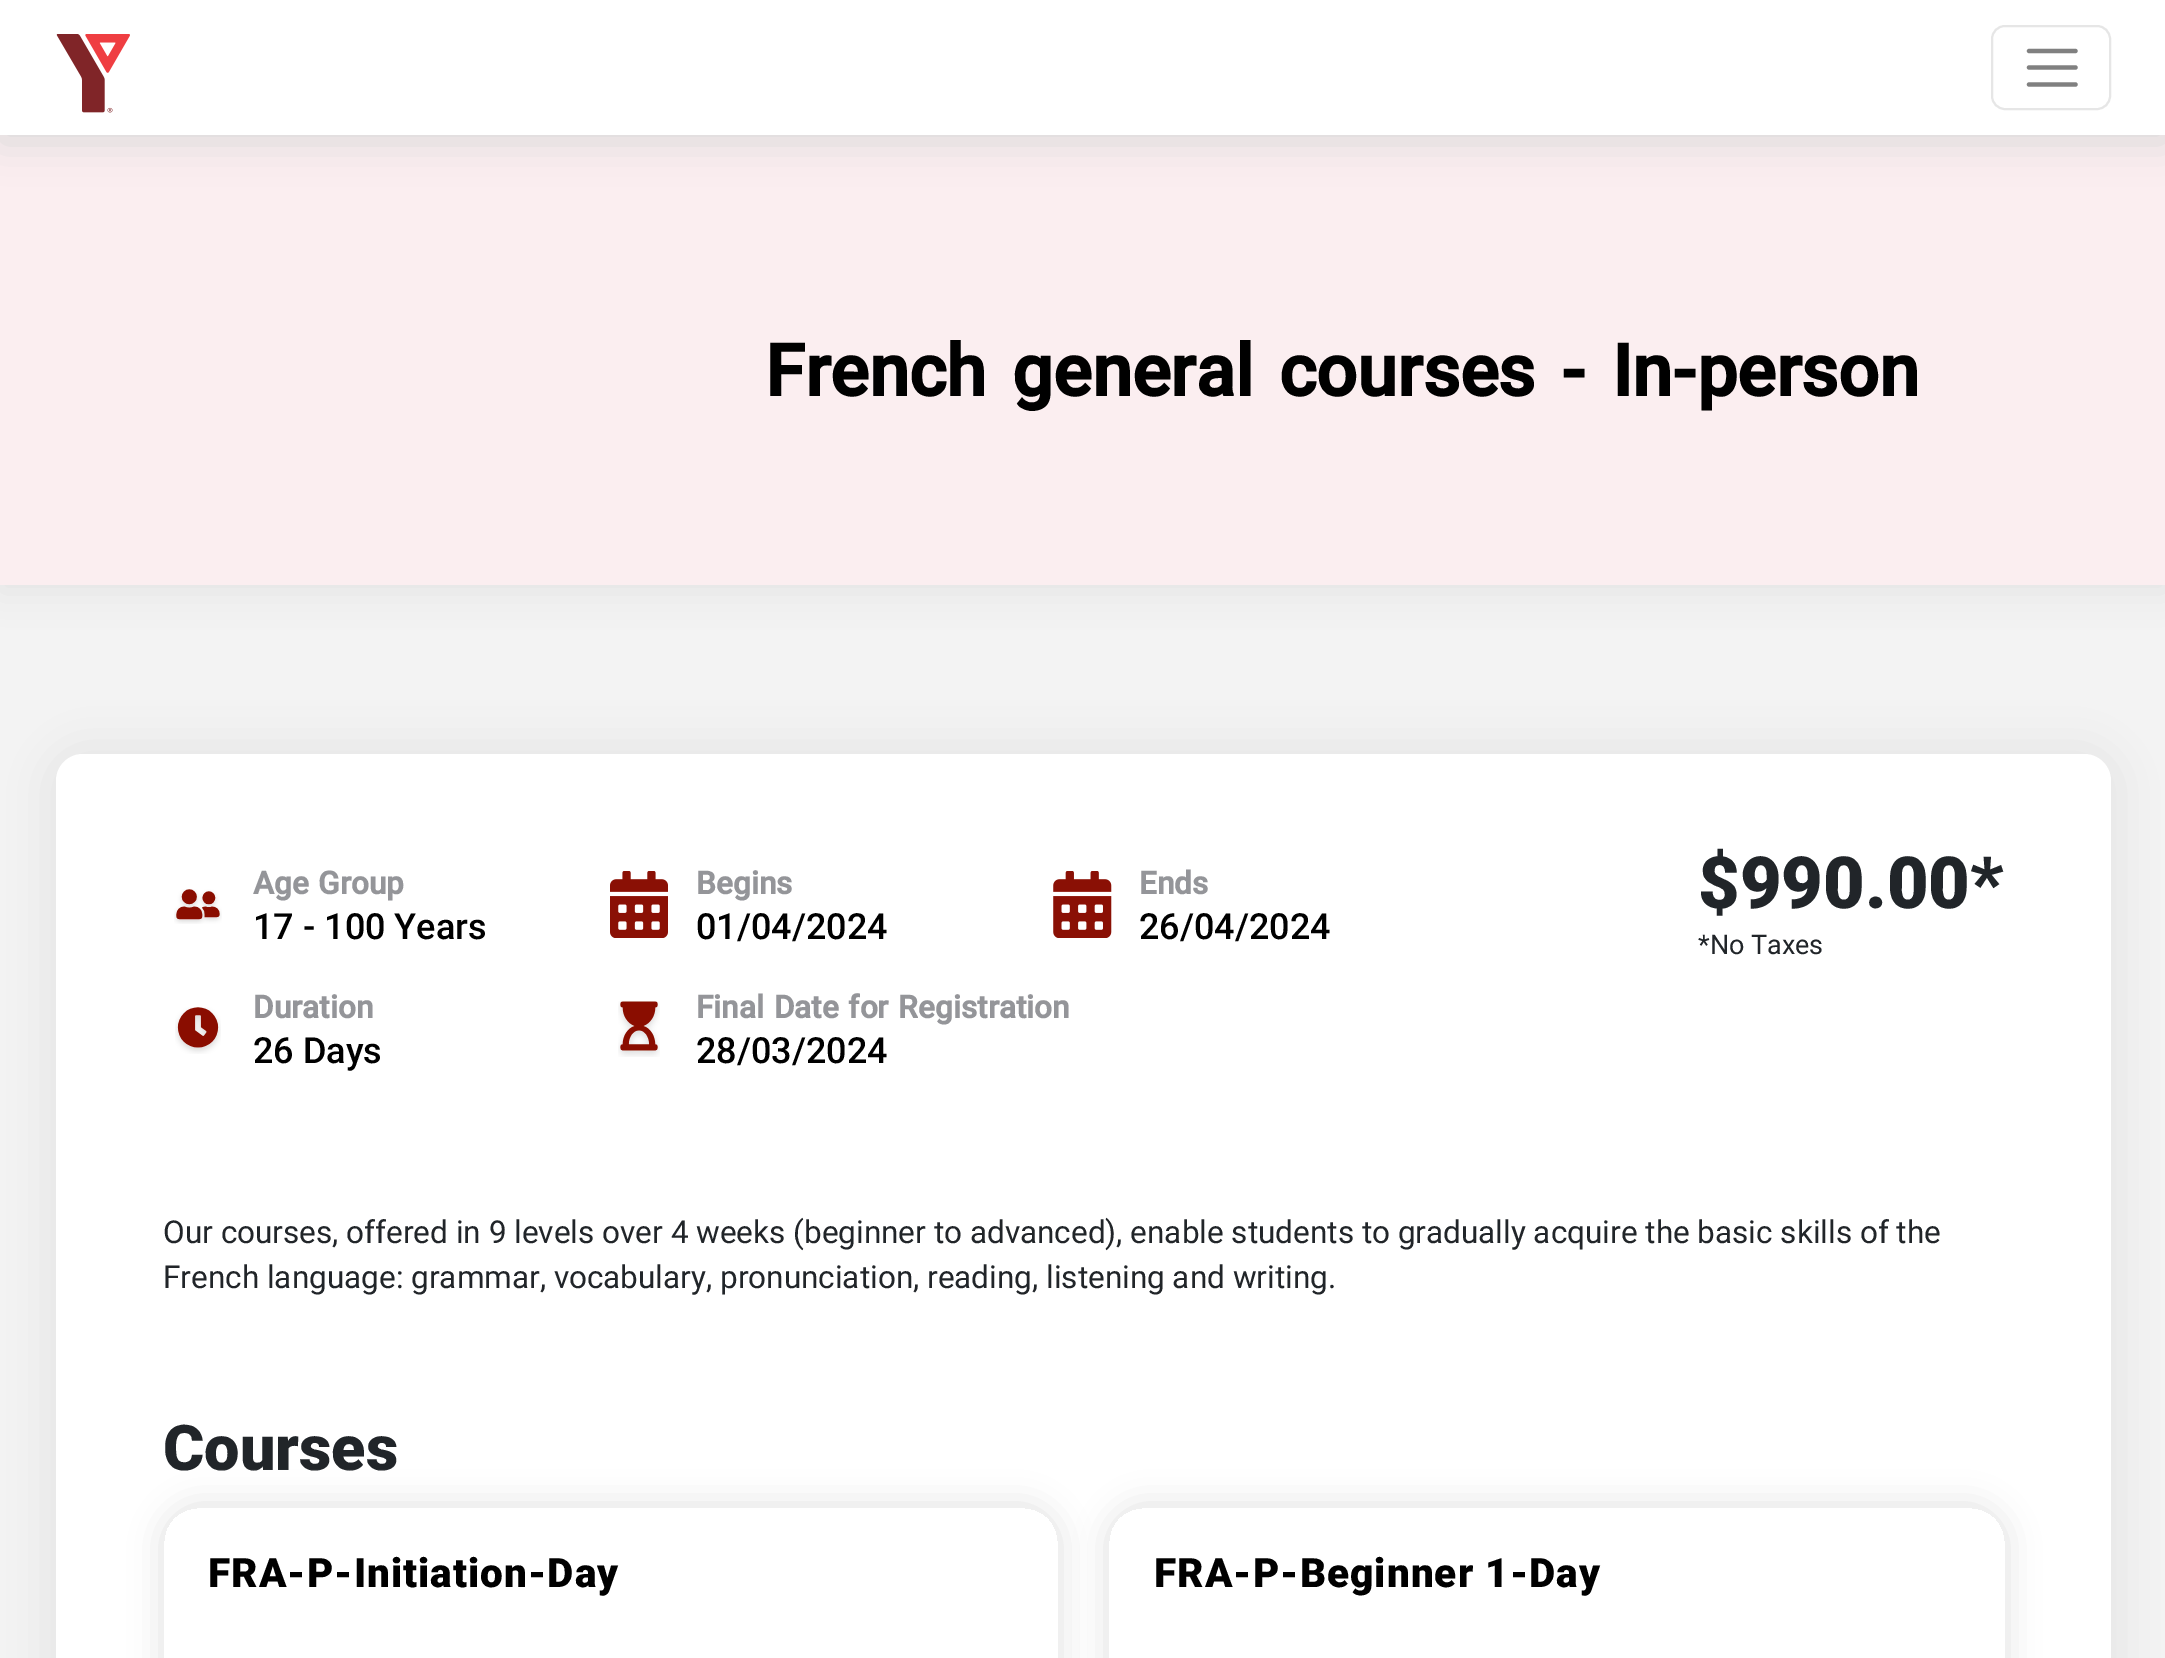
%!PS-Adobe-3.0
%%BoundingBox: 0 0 2165 1658
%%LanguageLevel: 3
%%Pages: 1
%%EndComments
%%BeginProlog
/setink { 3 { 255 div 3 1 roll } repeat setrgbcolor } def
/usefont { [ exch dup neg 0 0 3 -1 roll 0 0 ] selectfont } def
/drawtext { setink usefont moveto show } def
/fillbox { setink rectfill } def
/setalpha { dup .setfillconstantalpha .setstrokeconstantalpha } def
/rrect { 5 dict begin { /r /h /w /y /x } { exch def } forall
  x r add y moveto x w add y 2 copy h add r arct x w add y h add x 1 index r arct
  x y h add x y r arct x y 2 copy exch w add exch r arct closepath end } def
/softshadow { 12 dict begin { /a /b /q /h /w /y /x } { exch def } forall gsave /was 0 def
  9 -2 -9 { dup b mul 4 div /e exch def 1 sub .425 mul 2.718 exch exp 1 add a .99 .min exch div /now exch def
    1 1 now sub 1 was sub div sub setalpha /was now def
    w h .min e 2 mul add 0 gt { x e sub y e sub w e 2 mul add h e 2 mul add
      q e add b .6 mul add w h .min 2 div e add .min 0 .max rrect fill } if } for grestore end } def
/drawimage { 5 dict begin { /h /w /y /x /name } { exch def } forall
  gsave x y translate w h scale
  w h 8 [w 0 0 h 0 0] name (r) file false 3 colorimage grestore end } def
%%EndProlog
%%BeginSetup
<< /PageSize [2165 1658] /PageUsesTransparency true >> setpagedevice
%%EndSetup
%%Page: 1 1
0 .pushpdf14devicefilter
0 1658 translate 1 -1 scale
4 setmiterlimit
0 0 2165 1658 243 243 243 fillbox
227 227 227 setink
0 142 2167 450 0 16 1 softshadow
0 135 2165 450 251 238 240 fillbox
217 217 217 setink
0 7 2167 135 0 20 1 softshadow
0 0 2165 135 255 255 255 fillbox
(assets/img1.rgb) 56 34 74 79 drawimage
230 230 230 setink
2 setlinewidth
1992 26 118 83 13 rrect stroke
128 128 128 setink
4.2 setlinewidth
1 setlinecap
2029 51 moveto 2075.5 51 lineto 2029 67.5 moveto 2075.5 67.5 lineto 2029 84.5 moveto 2075.5 84.5 lineto stroke
/Roboto-Bold 72 usefont
0 0 0 setink
765 396 moveto 8 0 32 (French general courses - In-person) widthshow
230 230 230 setink
45 745 2077 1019 38 22.5 1 softshadow
255 255 255 setink
83 754 moveto 2084 754 lineto 2099 754 2111 766 2111 781 curveto 2111 1658 lineto 56 1658 lineto 56 781 lineto 56 766 68 754 83 754 curveto closepath fill
(assets/img2.rgb) 174 889 48 35 drawimage
/Roboto-Bold 31.5 usefont
148 149 153 setink
253 894 moveto 2 0 32 (Age Group) widthshow
(17 - 100 Years) 253 939 /Roboto-Medium 36 0 0 0 drawtext
(assets/img3.rgb) 610 871 58 67 drawimage
(Begins) 696 894 /Roboto-Bold 31.5 148 149 153 drawtext
(01/04/2024) 696 939 /Roboto-Medium 36 0 0 0 drawtext
(assets/img4.rgb) 1053 871 59 67 drawimage
(Ends) 1139 894 /Roboto-Bold 31.5 148 149 153 drawtext
(26/04/2024) 1139 939 /Roboto-Medium 36 0 0 0 drawtext
(assets/img5.rgb) 175 1007 46 47 drawimage
(Duration) 253 1018 /Roboto-Bold 31.5 148 149 153 drawtext
(26 Days) 253 1063 /Roboto-Medium 36 0 0 0 drawtext
(assets/img6.rgb) 618 1001 42 56 drawimage
/Roboto-Bold 31.5 usefont
148 149 153 setink
696 1018 moveto 2 0 32 (Final Date for Registration) widthshow
(28/03/2024) 696 1063 /Roboto-Medium 36 0 0 0 drawtext
($990.00*) 1698 908 /Roboto-Black 72 33 37 41 drawtext
(*No Taxes) 1698 954 /Roboto-Regular 27 33 37 41 drawtext
(Our courses, offered in 9 levels over 4 weeks \(beginner to advanced\), enable students to gradually acquire the basic skills of the) 163 1243 /Roboto-Regular 31.5 33 37 41 drawtext
(French language: grammar, vocabulary, pronunciation, reading, listening and writing.) 163 1288 /Roboto-Regular 31.5 33 37 41 drawtext
(Courses) 163 1470 /Roboto-Black 63 33 37 41 drawtext
gsave
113 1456 moveto 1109 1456 lineto 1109 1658 lineto 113 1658 lineto closepath 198 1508 moveto 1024 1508 lineto 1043 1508 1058 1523 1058 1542 curveto 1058 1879 lineto 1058 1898 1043 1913 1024 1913 curveto 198 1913 lineto 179 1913 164 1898 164 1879 curveto 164 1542 lineto 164 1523 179 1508 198 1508 curveto closepath eoclip newpath
224 224 224 setink
162 1505 898 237 36 16 1 softshadow
grestore
/Roboto-Black 40.5 usefont
0 0 0 setink
208 1587 moveto 1.1 0 (FRA-P-Initiation-Day) ashow
gsave
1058 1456 moveto 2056 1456 lineto 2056 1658 lineto 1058 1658 lineto closepath 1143 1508 moveto 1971 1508 lineto 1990 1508 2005 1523 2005 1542 curveto 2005 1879 lineto 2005 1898 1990 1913 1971 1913 curveto 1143 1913 lineto 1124 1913 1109 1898 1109 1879 curveto 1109 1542 lineto 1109 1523 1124 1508 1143 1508 curveto closepath eoclip newpath
224 224 224 setink
1107 1505 900 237 36 16 1 softshadow
grestore
1154 1587 moveto 1.1 0 (FRA-P-Beginner 1-Day) ashow
.poppdf14devicefilter showpage
%%EOF
